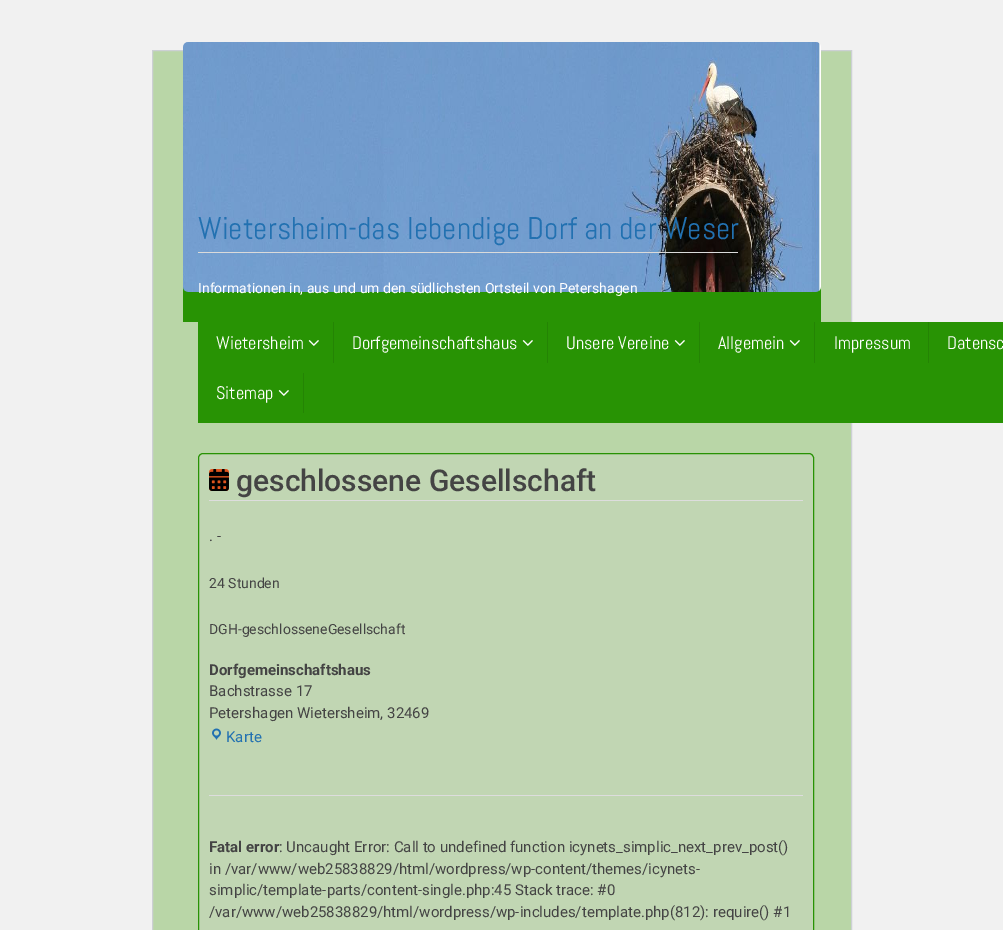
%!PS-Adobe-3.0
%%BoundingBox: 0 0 1003 930
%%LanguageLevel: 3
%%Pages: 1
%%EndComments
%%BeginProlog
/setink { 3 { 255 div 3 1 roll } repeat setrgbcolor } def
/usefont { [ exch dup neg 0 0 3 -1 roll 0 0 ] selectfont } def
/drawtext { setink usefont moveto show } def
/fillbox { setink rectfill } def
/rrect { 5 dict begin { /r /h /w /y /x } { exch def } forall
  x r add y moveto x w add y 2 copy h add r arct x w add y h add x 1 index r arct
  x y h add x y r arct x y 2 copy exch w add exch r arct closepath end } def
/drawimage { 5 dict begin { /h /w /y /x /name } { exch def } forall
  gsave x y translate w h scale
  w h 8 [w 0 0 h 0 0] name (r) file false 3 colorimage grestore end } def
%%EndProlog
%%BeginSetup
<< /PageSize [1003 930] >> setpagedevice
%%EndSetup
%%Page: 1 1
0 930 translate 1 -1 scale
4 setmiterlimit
0 0 1003 930 241 241 241 fillbox
185 214 167 setink
152.5 50.5 moveto 851.5 50.5 lineto 851.5 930.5 lineto 152.5 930.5 lineto closepath gsave fill grestore
204 208 212 setink
stroke
183 287 638 35 40 147 4 fillbox
(assets/img1.rgb) 183 42 638 250 drawimage
198 252 540 1 218 218 218 fillbox
(Wietersheim-das lebendige Dorf an der Weser) 198 239 /Abel-Regular 31.25 34 113 177 drawtext
(Informationen in, aus und um den südlichsten Ortsteil von Petershagen) 198 293 /Roboto-Regular 14 255 255 255 drawtext
198 322 805 101 40 147 4 fillbox
333 322 1 41 36 132 4 fillbox
(Wietersheim) 216 349 /Abel-Regular 18.25 255 255 255 drawtext
(assets/img2.rgb) 308 340 11 6 drawimage
547 322 1 41 36 132 4 fillbox
(Dorfgemeinschaftshaus) 352 349 /Abel-Regular 18.25 255 255 255 drawtext
(assets/img2.rgb) 522 340 11 6 drawimage
699 322 1 41 36 132 4 fillbox
(Unsere Vereine) 566 349 /Abel-Regular 18.25 255 255 255 drawtext
(assets/img2.rgb) 674 340 11 6 drawimage
814 322 1 41 36 132 4 fillbox
(Allgemein) 718 349 /Abel-Regular 18.25 255 255 255 drawtext
(assets/img2.rgb) 789 340 11 6 drawimage
928 322 1 41 36 132 4 fillbox
(Impressum) 834 349 /Abel-Regular 18.25 255 255 255 drawtext
(Datensc) 947 349 /Abel-Regular 18.25 255 255 255 drawtext
303 373 1 40 36 132 4 fillbox
(Sitemap) 216 399 /Abel-Regular 18.25 255 255 255 drawtext
(assets/img2.rgb) 278 390 11 6 drawimage
193 214 179 setink
198.5 453.5 615 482 4.5 rrect gsave fill grestore
40 147 4 setink
stroke
209 500 594 1 221 221 221 fillbox
224 84 29 setink
209 469 20 22 3 rrect fill
(assets/img3.rgb) 209 469 20 22 drawimage
(geschlossene Gesellschaft) 236 491 /Roboto-Medium 30 68 68 68 drawtext
(. -) 209 541 /Roboto-Regular 15 68 68 68 drawtext
(24 Stunden) 209 588 /Roboto-Regular 14 68 68 68 drawtext
(DGH-geschlosseneGesellschaft) 209 634 /Roboto-Regular 14 68 68 68 drawtext
(Dorfgemeinschaftshaus) 209 675 /Roboto-Bold 15 68 68 68 drawtext
(Bachstrasse 17) 209 696 /Roboto-Regular 15 68 68 68 drawtext
(Petershagen Wietersheim, 32469) 209 718 /Roboto-Regular 15 68 68 68 drawtext
(assets/img4.rgb) 212 728 9 12 drawimage
(Karte) 226 742 /Roboto-Regular 15 34 113 177 drawtext
209 795 594 1 221 221 221 fillbox
(Fatal error) 209 852 /Roboto-Bold 15 68 68 68 drawtext
(: Uncaught Error: Call to undefined function icynets_simplic_next_prev_post\(\)) 279 852 /Roboto-Regular 15 68 68 68 drawtext
(in /var/www/web25838829/html/wordpress/wp-content/themes/icynets-) 209 874 /Roboto-Regular 15 68 68 68 drawtext
(simplic/template-parts/content-single.php:45 Stack trace: #0) 209 895 /Roboto-Regular 15 68 68 68 drawtext
(/var/www/web25838829/html/wordpress/wp-includes/template.php\(812\): require\(\) #1) 209 917 /Roboto-Regular 15 68 68 68 drawtext
showpage
%%EOF
